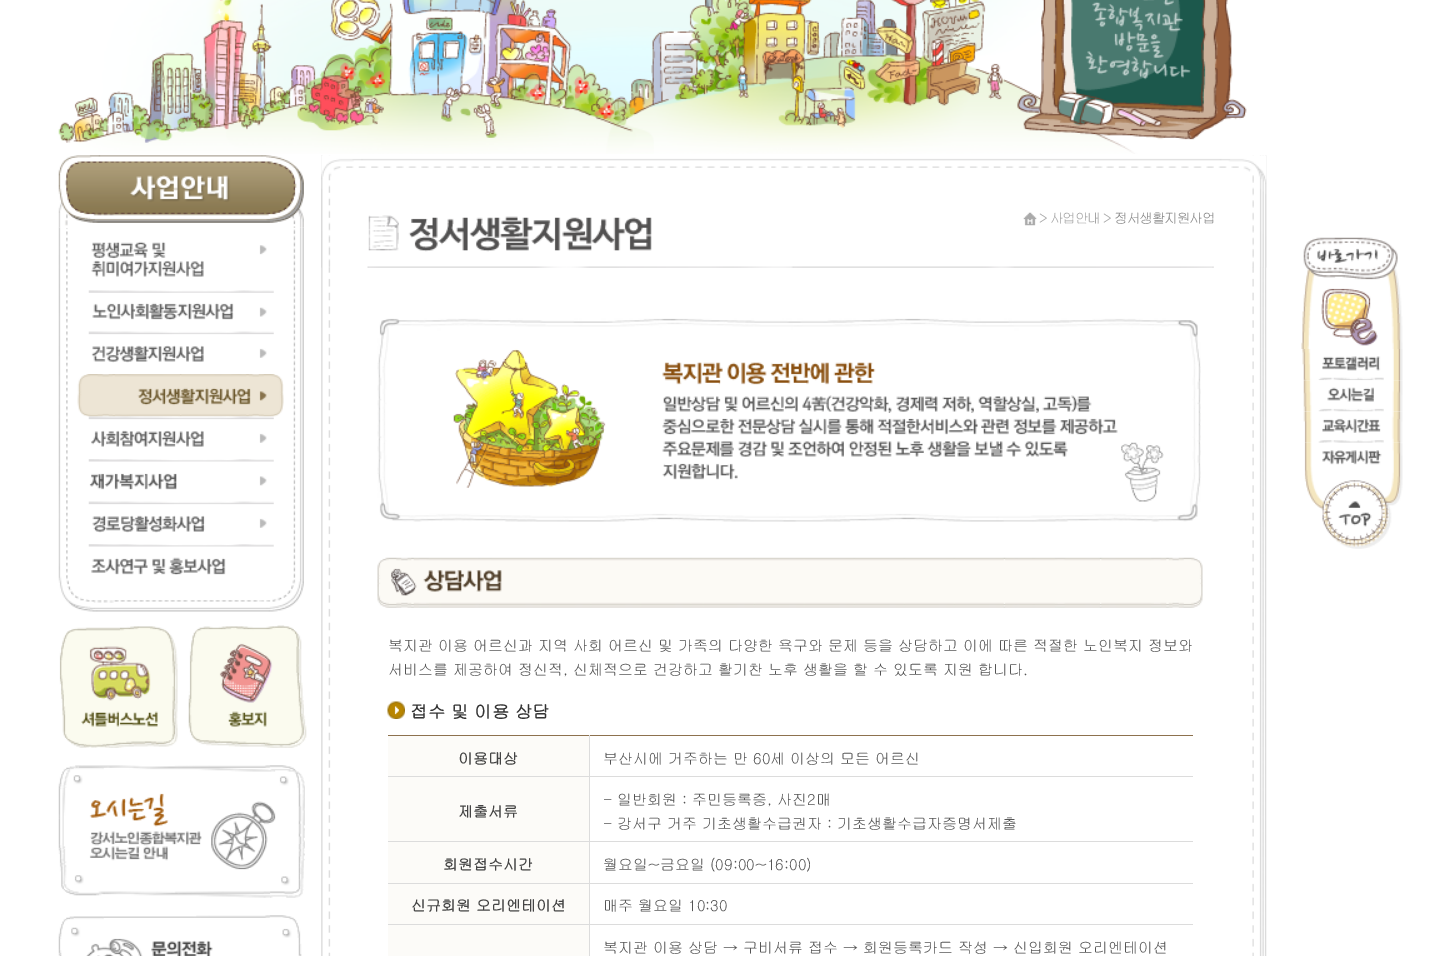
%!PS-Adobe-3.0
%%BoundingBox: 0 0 1447 956
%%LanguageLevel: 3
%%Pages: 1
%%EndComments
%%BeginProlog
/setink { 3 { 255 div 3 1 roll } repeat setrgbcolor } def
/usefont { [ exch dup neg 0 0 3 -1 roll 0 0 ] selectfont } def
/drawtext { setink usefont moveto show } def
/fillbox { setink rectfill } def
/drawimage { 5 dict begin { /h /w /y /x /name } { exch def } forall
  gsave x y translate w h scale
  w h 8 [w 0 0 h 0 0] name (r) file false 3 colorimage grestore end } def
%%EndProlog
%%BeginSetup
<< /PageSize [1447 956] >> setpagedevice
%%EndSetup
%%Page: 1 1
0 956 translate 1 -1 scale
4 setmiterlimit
0 0 1447 956 255 255 255 fillbox
(assets/img1.rgb) 58 0 1189 154 drawimage
(assets/img3.rgb) 58 227 246 385 drawimage
(assets/img2.rgb) 58 155 246 73 drawimage
(assets/img4.rgb) 91 241 176 36 drawimage
(assets/img5.rgb) 88 290 186 30 drawimage
(assets/img6.rgb) 88 331 186 32 drawimage
(assets/img7.rgb) 77 374 207 43 drawimage
(assets/img8.rgb) 86 416 189 31 drawimage
(assets/img9.rgb) 88 459 186 31 drawimage
(assets/img10.rgb) 88 501 186 32 drawimage
(assets/img11.rgb) 88 544 186 31 drawimage
(assets/img12.rgb) 59 626 119 122 drawimage
(assets/img13.rgb) 188 625 119 123 drawimage
(assets/img14.rgb) 58 765 247 133 drawimage
(assets/img15.rgb) 58 915 244 41 drawimage
(assets/img16.rgb) 321 155 946 801 drawimage
(assets/img17.rgb) 321 155 946 113 drawimage
(assets/img18.rgb) 408 216 244 36 drawimage
(assets/img19.rgb) 1023 212 14 14 drawimage
/Gulim-Regular 13.75 usefont
165 165 165 setink
1039 223 moveto -1.25 0 (> 사업안내 >) ashow
133 133 133 setink
1114 223 moveto -1.25 0 (정서생활지원사업) ashow
(assets/img20.rgb) 377 318 824 204 drawimage
(assets/img21.rgb) 377 557 826 51 drawimage
(복지관 이용 어르신과 지역 사회 어르신 및 가족의 다양한 욕구와 문제 등을 상담하고 이에 따른 적절한 노인복지 정보와) 388 651 /Gulim-Regular 15 85 85 85 drawtext
(서비스를 제공하여 정신적, 신체적으로 건강하고 활기찬 노후 생활을 할 수 있도록 지원 합니다.) 388 675 /Gulim-Regular 15 85 85 85 drawtext
(assets/img22.rgb) 387 701 18 18 drawimage
(접수 및 이용 상담) 410 718 /Gulim-Bold 17.5 51 51 51 drawtext
388 736 201 147 252 251 248 fillbox
388 735 805 1 141 113 78 fillbox
388 776 805 1 220 220 220 fillbox
(이용대상) 458 764 /Gulim-Bold 15 68 68 68 drawtext
589 735 1 43 220 220 220 fillbox
(부산시에 거주하는 만 60세 이상의 모든 어르신) 603 764 /Gulim-Regular 15 85 85 85 drawtext
388 841 805 1 220 220 220 fillbox
(제출서류) 458 817 /Gulim-Bold 15 68 68 68 drawtext
589 778 1 65 220 220 220 fillbox
(- 일반회원 : 주민등록증, 사진2매) 603 805 /Gulim-Regular 15 85 85 85 drawtext
(- 강서구 거주 기초생활수급권자 : 기초생활수급자증명서제출) 603 829 /Gulim-Regular 15 85 85 85 drawtext
388 883 805 1 220 220 220 fillbox
(회원접수시간) 443 870 /Gulim-Bold 15 68 68 68 drawtext
589 843 1 41 220 220 220 fillbox
(월요일~금요일 \(09:00~16:00\)) 603 870 /Gulim-Regular 15 85 85 85 drawtext
388 884 201 40 252 251 248 fillbox
388 924 805 1 220 220 220 fillbox
(신규회원 오리엔테이션) 411 911 /Gulim-Bold 15 68 68 68 drawtext
589 884 1 72 220 220 220 fillbox
(매주 월요일 10:30) 603 911 /Gulim-Regular 15 85 85 85 drawtext
388 925 201 31 252 251 248 fillbox
(복지관 이용 상담 → 구비서류 접수 → 회원등록카드 작성 → 신입회원 오리엔테이션) 603 953 /Gulim-Regular 15 85 85 85 drawtext
(assets/img23.rgb) 1301 237 102 112 drawimage
(assets/img24.rgb) 1302 349 101 32 drawimage
(assets/img25.rgb) 1303 380 100 32 drawimage
(assets/img26.rgb) 1303 411 100 32 drawimage
(assets/img27.rgb) 1304 442 99 32 drawimage
(assets/img28.rgb) 1304 474 99 75 drawimage
showpage
%%EOF
